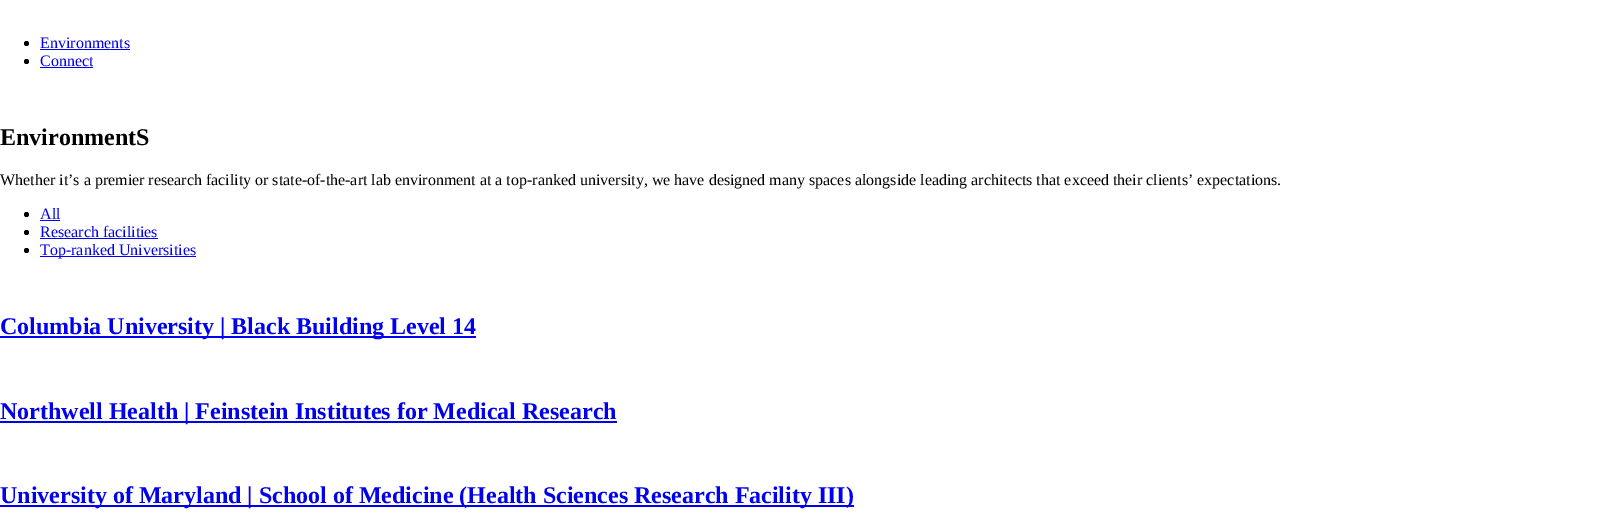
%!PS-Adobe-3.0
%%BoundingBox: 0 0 1616 523
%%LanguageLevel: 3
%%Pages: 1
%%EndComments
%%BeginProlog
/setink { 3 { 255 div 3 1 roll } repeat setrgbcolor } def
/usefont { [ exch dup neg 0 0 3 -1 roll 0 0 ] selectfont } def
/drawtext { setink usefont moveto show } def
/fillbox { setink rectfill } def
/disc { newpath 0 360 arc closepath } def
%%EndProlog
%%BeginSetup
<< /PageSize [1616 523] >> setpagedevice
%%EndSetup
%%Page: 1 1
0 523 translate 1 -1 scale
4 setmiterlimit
0 0 1616 523 255 255 255 fillbox
0 0 0 setink
26.5 43.5 2.5 disc fill
(Environments) 40 48 /LiberationSerif-Regular 16 0 0 238 drawtext
40 49 90 1 0 0 238 fillbox
0 0 0 setink
26.5 61.5 2.5 disc fill
(Connect) 40 66 /LiberationSerif-Regular 16 0 0 238 drawtext
40 67 53 1 0 0 238 fillbox
(EnvironmentS) 0 145 /LiberationSerif-Bold 24 0 0 0 drawtext
(Whether it’s a premier research facility or state-of-the-art lab environment at a top-ranked university, we have designed many spaces alongside leading architects that exceed their clients’ expectations.) 0 185 /LiberationSerif-Regular 16 0 0 0 drawtext
26.5 214.5 2.5 disc fill
(All) 40 219 /LiberationSerif-Regular 16 0 0 238 drawtext
40 220 20 1 0 0 238 fillbox
0 0 0 setink
26.5 232.5 2.5 disc fill
(Research facilities) 40 237 /LiberationSerif-Regular 16 0 0 238 drawtext
40 238 118 1 0 0 238 fillbox
0 0 0 setink
26.5 250.5 2.5 disc fill
40 256 156 1 0 0 238 fillbox
(Top-ranked Universities) 40 255 /LiberationSerif-Regular 16 0 0 238 drawtext
0 336 476 2 0 0 238 fillbox
(Columbia University | Black Building Level 14) 0 334 /LiberationSerif-Bold 24 0 0 238 drawtext
0 421 617 2 0 0 238 fillbox
(Northwell Health | Feinstein Institutes for Medical Research) 0 419 /LiberationSerif-Bold 24 0 0 238 drawtext
0 505 854 2 0 0 238 fillbox
(University of Maryland | School of Medicine \(Health Sciences Research Facility III\)) 0 503 /LiberationSerif-Bold 24 0 0 238 drawtext
showpage
%%EOF
